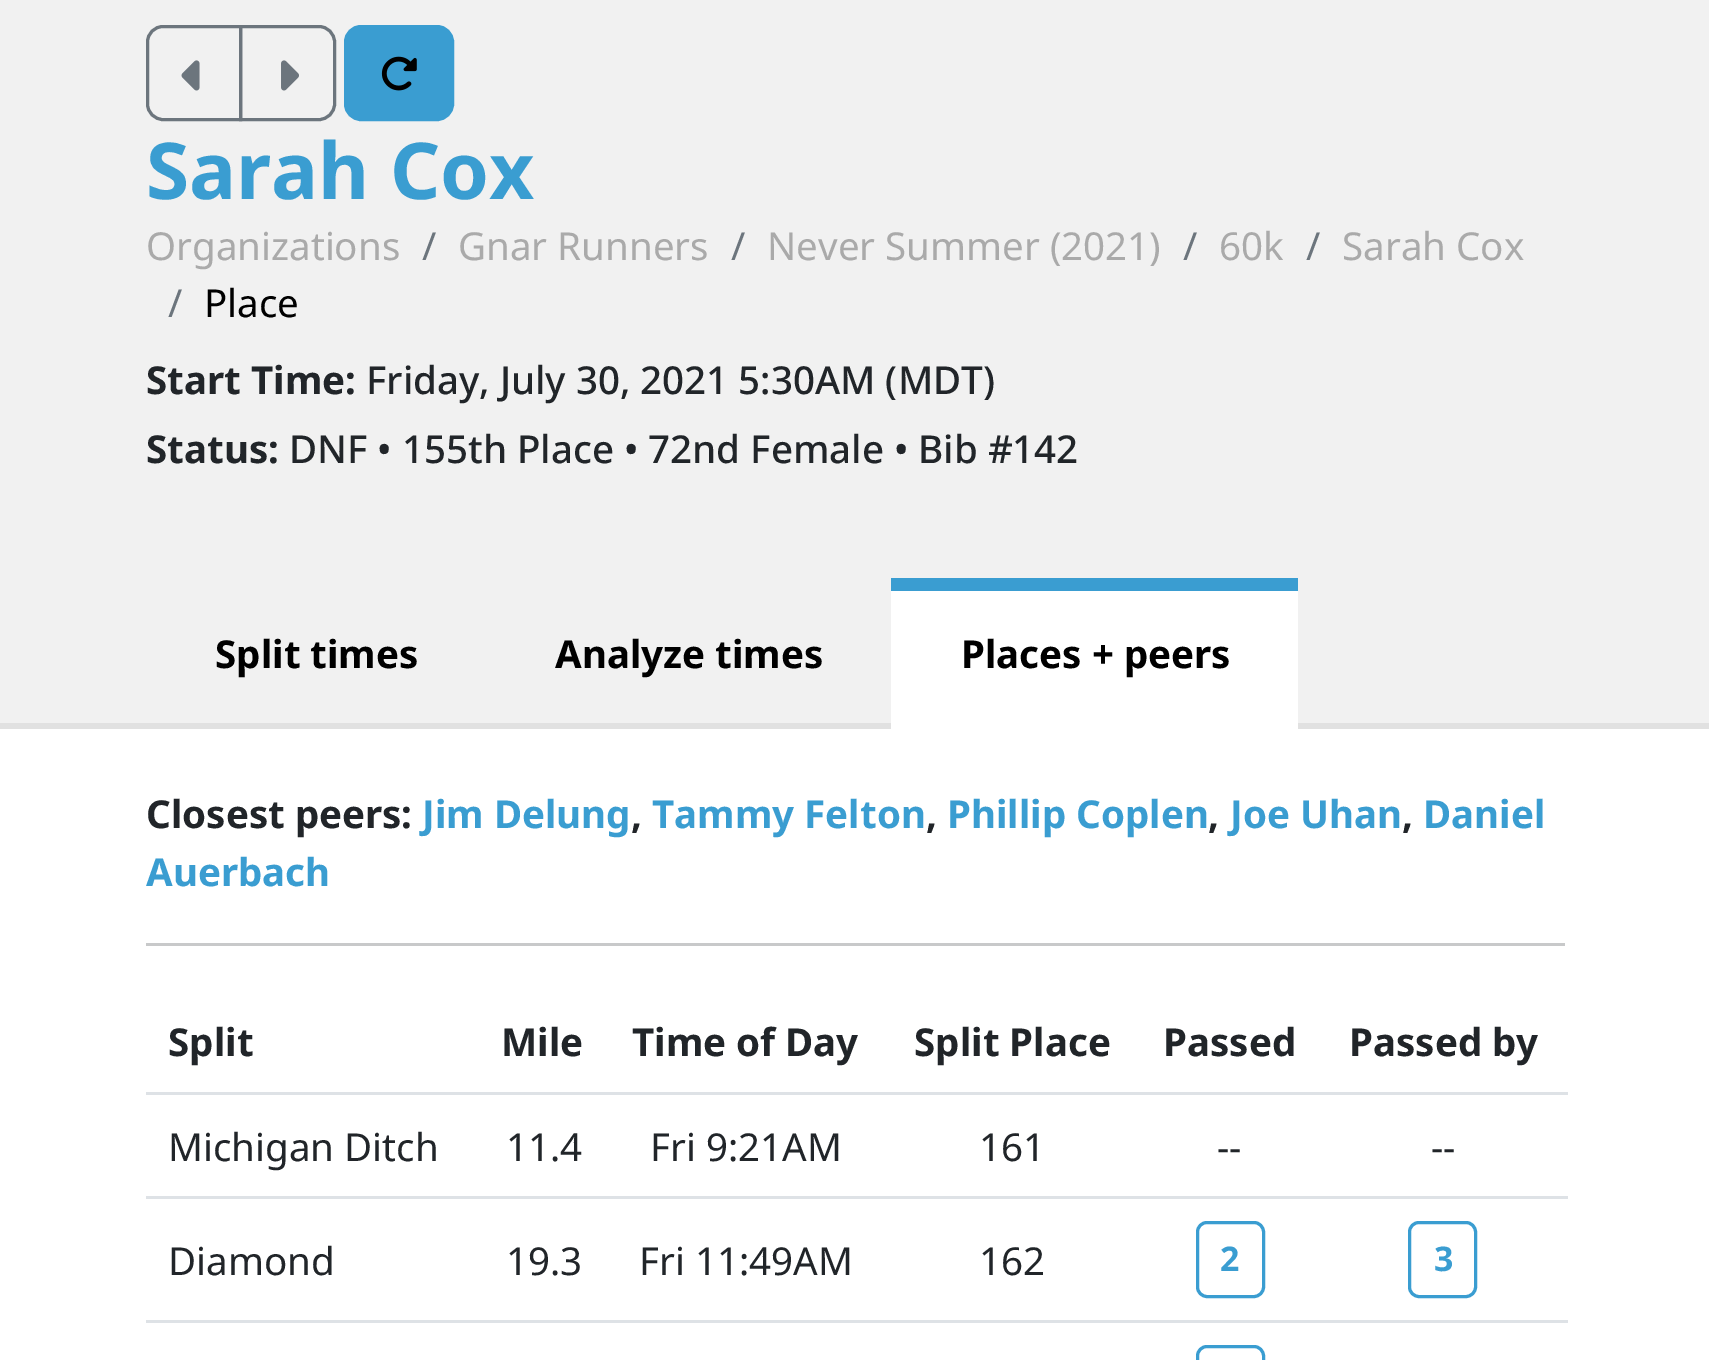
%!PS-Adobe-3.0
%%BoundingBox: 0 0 1709 1360
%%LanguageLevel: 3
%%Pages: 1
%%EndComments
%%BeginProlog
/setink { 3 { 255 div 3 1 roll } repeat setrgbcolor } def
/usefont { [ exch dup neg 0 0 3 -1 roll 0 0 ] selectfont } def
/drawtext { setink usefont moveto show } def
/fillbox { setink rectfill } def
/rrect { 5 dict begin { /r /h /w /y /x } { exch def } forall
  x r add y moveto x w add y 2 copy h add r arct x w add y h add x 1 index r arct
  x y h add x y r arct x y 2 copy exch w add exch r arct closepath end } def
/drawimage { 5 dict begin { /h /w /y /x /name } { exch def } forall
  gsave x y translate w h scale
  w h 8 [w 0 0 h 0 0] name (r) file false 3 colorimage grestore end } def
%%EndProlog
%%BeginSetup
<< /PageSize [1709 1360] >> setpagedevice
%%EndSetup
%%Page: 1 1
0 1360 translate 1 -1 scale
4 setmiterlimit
0 0 1709 1360 255 255 255 fillbox
0 0 1709 723 241 241 241 fillbox
0 723 1709 6 225 225 225 fillbox
108 117 125 setink
3 setlinewidth
163 26.5 moveto 240.5 26.5 lineto 240.5 119.5 lineto 163 119.5 lineto 154.5 119.5 147.5 112.5 147.5 104 curveto 147.5 42 lineto 147.5 33.5 154.5 26.5 163 26.5 curveto closepath stroke
(assets/img1.rgb) 181 60 19 31 drawimage
240.5 26.5 moveto 319 26.5 lineto 327.5 26.5 334.5 33.5 334.5 42 curveto 334.5 104 lineto 334.5 112.5 327.5 119.5 319 119.5 curveto 240.5 119.5 lineto closepath stroke
(assets/img2.rgb) 281 60 18 31 drawimage
58 157 209 setink
345.5 26.5 107 93 15.5 rrect gsave fill grestore
stroke
(assets/img3.rgb) 381 56 36 35 drawimage
(Sarah Cox) 146 199 /NotoSans-Bold 78.5 58 157 209 drawtext
(Organizations) 146 260 /NotoSans-Regular 38.5 170 170 170 drawtext
(/) 422 260 /NotoSans-Regular 38.5 108 117 125 drawtext
(Gnar Runners) 458 260 /NotoSans-Regular 38.5 170 170 170 drawtext
(/) 731 260 /NotoSans-Regular 38.5 108 117 125 drawtext
(Never Summer \(2021\)) 767 260 /NotoSans-Regular 38.5 170 170 170 drawtext
(/) 1183 260 /NotoSans-Regular 38.5 108 117 125 drawtext
(60k) 1219 260 /NotoSans-Regular 38.5 170 170 170 drawtext
(/) 1306 260 /NotoSans-Regular 38.5 108 117 125 drawtext
(Sarah Cox) 1342 260 /NotoSans-Regular 38.5 170 170 170 drawtext
(/) 168 317 /NotoSans-Regular 38.5 108 117 125 drawtext
(Place) 204 317 /NotoSans-Regular 38.5 0 0 0 drawtext
(Start Time:) 146 394 /NotoSans-Bold 38.5 33 37 41 drawtext
(Friday, July 30, 2021 5:30AM \(MDT\)) 366 394 /NotoSans-Medium 38.5 33 37 41 drawtext
(Status:) 146 463 /NotoSans-Bold 38.5 33 37 41 drawtext
(DNF • 155th Place • 72nd Female • Bib #142) 289 463 /NotoSans-Medium 38.5 33 37 41 drawtext
(Split times) 215 668 /NotoSans-Bold 38.5 0 0 0 drawtext
(Analyze times) 555 668 /NotoSans-Bold 38.5 0 0 0 drawtext
891 591 407 138 255 255 255 fillbox
891 578 407 13 58 157 209 fillbox
(Places + peers) 961 668 /NotoSans-Bold 38.5 0 0 0 drawtext
(Closest peers:) 146 828 /NotoSans-Bold 38.5 33 37 41 drawtext
(Jim Delung) 422 828 /NotoSans-Bold 38.5 58 157 209 drawtext
(,) 631 828 /NotoSans-Bold 38.5 33 37 41 drawtext
(Tammy Felton) 652 828 /NotoSans-Bold 38.5 58 157 209 drawtext
(,) 926 828 /NotoSans-Bold 38.5 33 37 41 drawtext
(Phillip Coplen) 947 828 /NotoSans-Bold 38.5 58 157 209 drawtext
(,) 1208 828 /NotoSans-Bold 38.5 33 37 41 drawtext
(Joe Uhan) 1230 828 /NotoSans-Bold 38.5 58 157 209 drawtext
(,) 1402 828 /NotoSans-Bold 38.5 33 37 41 drawtext
(Daniel) 1423 828 /NotoSans-Bold 38.5 58 157 209 drawtext
(Auerbach) 146 886 /NotoSans-Bold 38.5 58 157 209 drawtext
146 943 1419 3 200 201 202 fillbox
(Split) 168 1056 /NotoSans-Bold 38.5 33 37 41 drawtext
(Mile) 501 1056 /NotoSans-Bold 38.5 33 37 41 drawtext
(Time of Day) 632 1056 /NotoSans-Bold 38.5 33 37 41 drawtext
(Split Place) 914 1056 /NotoSans-Bold 38.5 33 37 41 drawtext
(Passed) 1163 1056 /NotoSans-Bold 38.5 33 37 41 drawtext
146 1092 1422 3 222 226 230 fillbox
(Passed by) 1349 1056 /NotoSans-Bold 38.5 33 37 41 drawtext
(Michigan Ditch) 168 1161 /NotoSans-Regular 38.5 33 37 41 drawtext
(11.4) 506 1161 /NotoSans-Regular 38.5 33 37 41 drawtext
(Fri 9:21AM) 650 1161 /NotoSans-Regular 38.5 33 37 41 drawtext
(161) 979 1161 /NotoSans-Regular 38.5 33 37 41 drawtext
(--) 1217 1161 /NotoSans-Regular 38.5 33 37 41 drawtext
146 1196 1422 3 222 226 230 fillbox
(--) 1431 1161 /NotoSans-Regular 38.5 33 37 41 drawtext
(Diamond) 168 1275 /NotoSans-Regular 38.5 33 37 41 drawtext
(19.3) 506 1275 /NotoSans-Regular 38.5 33 37 41 drawtext
(Fri 11:49AM) 639 1275 /NotoSans-Regular 38.5 33 37 41 drawtext
(162) 979 1275 /NotoSans-Regular 38.5 33 37 41 drawtext
58 157 209 setink
1197.5 1222.5 66 74 9.5 rrect stroke
(2) 1220 1271 /NotoSans-Bold 34 58 157 209 drawtext
146 1320 1422 3 222 226 230 fillbox
58 157 209 setink
1409.5 1222.5 66 74 9.5 rrect stroke
(3) 1434 1271 /NotoSans-Bold 34 58 157 209 drawtext
1197.5 1346.5 66 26 9.5 rrect stroke
showpage
%%EOF
